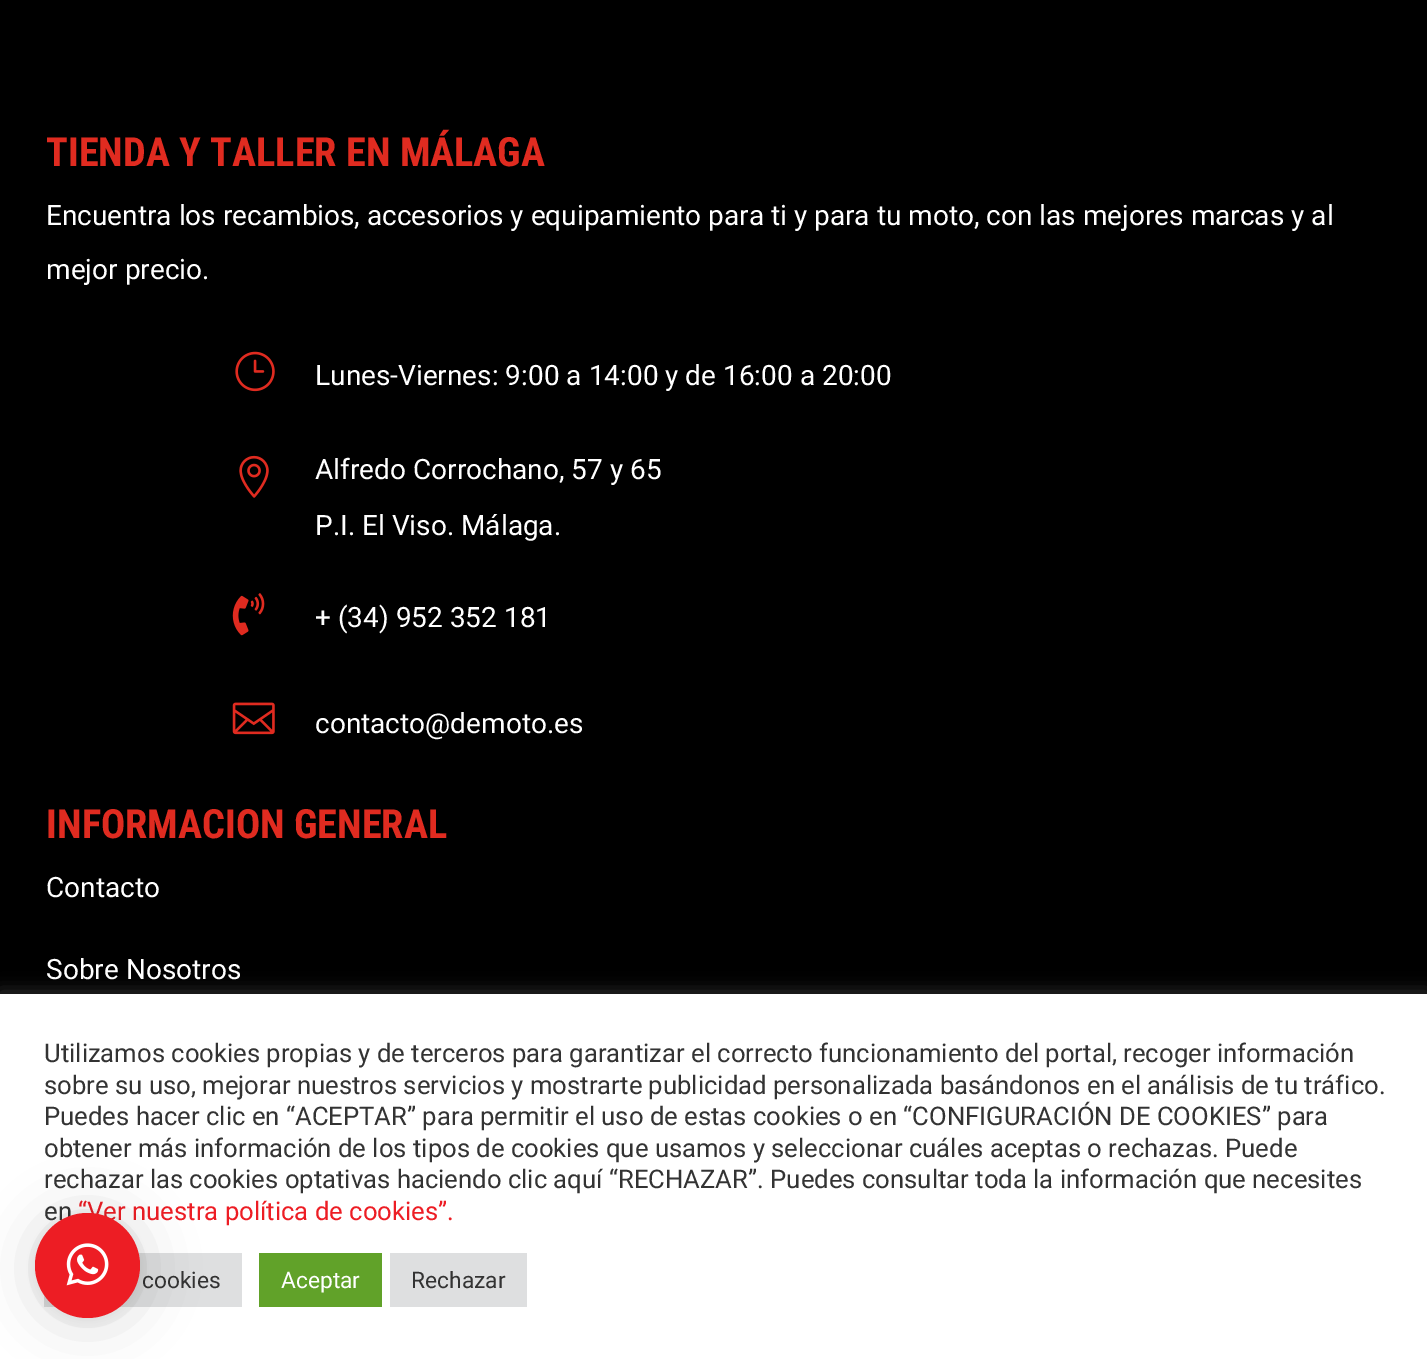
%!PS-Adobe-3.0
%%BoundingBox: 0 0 1427 1359
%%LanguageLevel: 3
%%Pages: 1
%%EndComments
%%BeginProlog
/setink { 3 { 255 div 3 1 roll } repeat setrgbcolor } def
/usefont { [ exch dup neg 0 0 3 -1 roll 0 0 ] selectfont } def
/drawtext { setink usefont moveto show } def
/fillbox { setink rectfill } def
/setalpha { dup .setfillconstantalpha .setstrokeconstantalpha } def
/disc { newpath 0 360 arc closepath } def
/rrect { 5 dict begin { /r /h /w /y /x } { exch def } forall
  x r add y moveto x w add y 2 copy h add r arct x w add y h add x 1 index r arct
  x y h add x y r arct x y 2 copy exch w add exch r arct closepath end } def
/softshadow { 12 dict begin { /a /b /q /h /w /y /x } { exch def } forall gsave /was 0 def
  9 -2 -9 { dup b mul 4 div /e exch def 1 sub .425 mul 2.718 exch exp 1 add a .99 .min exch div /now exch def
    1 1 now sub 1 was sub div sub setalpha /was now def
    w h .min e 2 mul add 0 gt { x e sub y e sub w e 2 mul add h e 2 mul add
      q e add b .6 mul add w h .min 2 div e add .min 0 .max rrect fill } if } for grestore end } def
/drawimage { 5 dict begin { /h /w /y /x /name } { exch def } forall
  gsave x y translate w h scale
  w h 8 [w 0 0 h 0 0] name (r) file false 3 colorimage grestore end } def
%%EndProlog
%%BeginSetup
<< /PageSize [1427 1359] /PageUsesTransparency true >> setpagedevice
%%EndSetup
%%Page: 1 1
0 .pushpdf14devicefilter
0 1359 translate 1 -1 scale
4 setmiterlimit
0 0 1427 1359 0 0 0 fillbox
(TIENDA Y TALLER EN MÁLAGA) 46 166 /RobotoCondensed-Bold 40.25 224 43 32 drawtext
(Encuentra los recambios, accesorios y equipamiento para ti y para tu moto, con las mejores marcas y al) 46 225 /Roboto-Regular 28 255 255 255 drawtext
(mejor precio.) 46 279 /Roboto-Regular 28 255 255 255 drawtext
(assets/img1.rgb) 235 351 40 41 drawimage
(Lunes-Viernes: 9:00 a 14:00 y de 16:00 a 20:00) 315 385 /Roboto-Regular 28 255 255 255 drawtext
(assets/img2.rgb) 239 455 30 43 drawimage
(Alfredo Corrochano, 57 y 65) 315 479 /Roboto-Regular 28 255 255 255 drawtext
(P.I. El Viso. Málaga.) 315 535 /Roboto-Regular 28 255 255 255 drawtext
(assets/img3.rgb) 232 593 33 43 drawimage
(+ \(34\) 952 352 181) 315 627 /Roboto-Regular 28 255 255 255 drawtext
(assets/img4.rgb) 232 702 43 33 drawimage
(contacto@demoto.es) 315 733 /Roboto-Regular 28 255 255 255 drawtext
(INFORMACION GENERAL) 46 838 /RobotoCondensed-Bold 40.25 224 43 32 drawtext
(Contacto) 46 897 /Roboto-Regular 28 255 255 255 drawtext
(Sobre Nosotros) 46 979 /Roboto-Regular 28 255 255 255 drawtext
172 171 171 setink
0 992 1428 366 0 9 0.3 softshadow
0 994 1427 365 255 255 255 fillbox
(Utilizamos cookies propias y de terceros para garantizar el correcto funcionamiento del portal, recoger información) 44 1062 /Roboto-Regular 25.67 51 51 51 drawtext
(sobre su uso, mejorar nuestros servicios y mostrarte publicidad personalizada basándonos en el análisis de tu tráfico.) 44 1094 /Roboto-Regular 25.67 51 51 51 drawtext
(Puedes hacer clic en “ACEPTAR” para permitir el uso de estas cookies o en “CONFIGURACIÓN DE COOKIES” para) 44 1125 /Roboto-Regular 25.67 51 51 51 drawtext
(obtener más información de los tipos de cookies que usamos y seleccionar cuáles aceptas o rechazas. Puede) 44 1157 /Roboto-Regular 25.67 51 51 51 drawtext
(rechazar las cookies optativas haciendo clic aquí “RECHAZAR”. Puedes consultar toda la información que necesites) 44 1188 /Roboto-Regular 25.67 51 51 51 drawtext
(en) 44 1220 /Roboto-Regular 25.67 51 51 51 drawtext
(“Ver nuestra política de cookies”.) 78 1220 /Roboto-Regular 25.67 237 29 36 drawtext
44 1253 198 54 222 223 224 fillbox
(cookies) 142 1288 /Roboto-Regular 22.75 51 51 51 drawtext
259 1253 123 54 97 162 41 fillbox
(Aceptar) 281 1288 /Roboto-Regular 22.75 255 255 255 drawtext
390 1253 137 54 222 223 224 fillbox
(Rechazar) 411 1288 /Roboto-Regular 22.75 51 51 51 drawtext
0 0 0 setink
35 1216 105 105 52.5 28 0.16 softshadow
35 1215 105 105 52.5 5 0.06 softshadow
237 29 36 setink
87.5 1265.5 52.5 disc fill
(assets/img5.rgb) 66 1243 43 43 drawimage
.poppdf14devicefilter showpage
%%EOF
